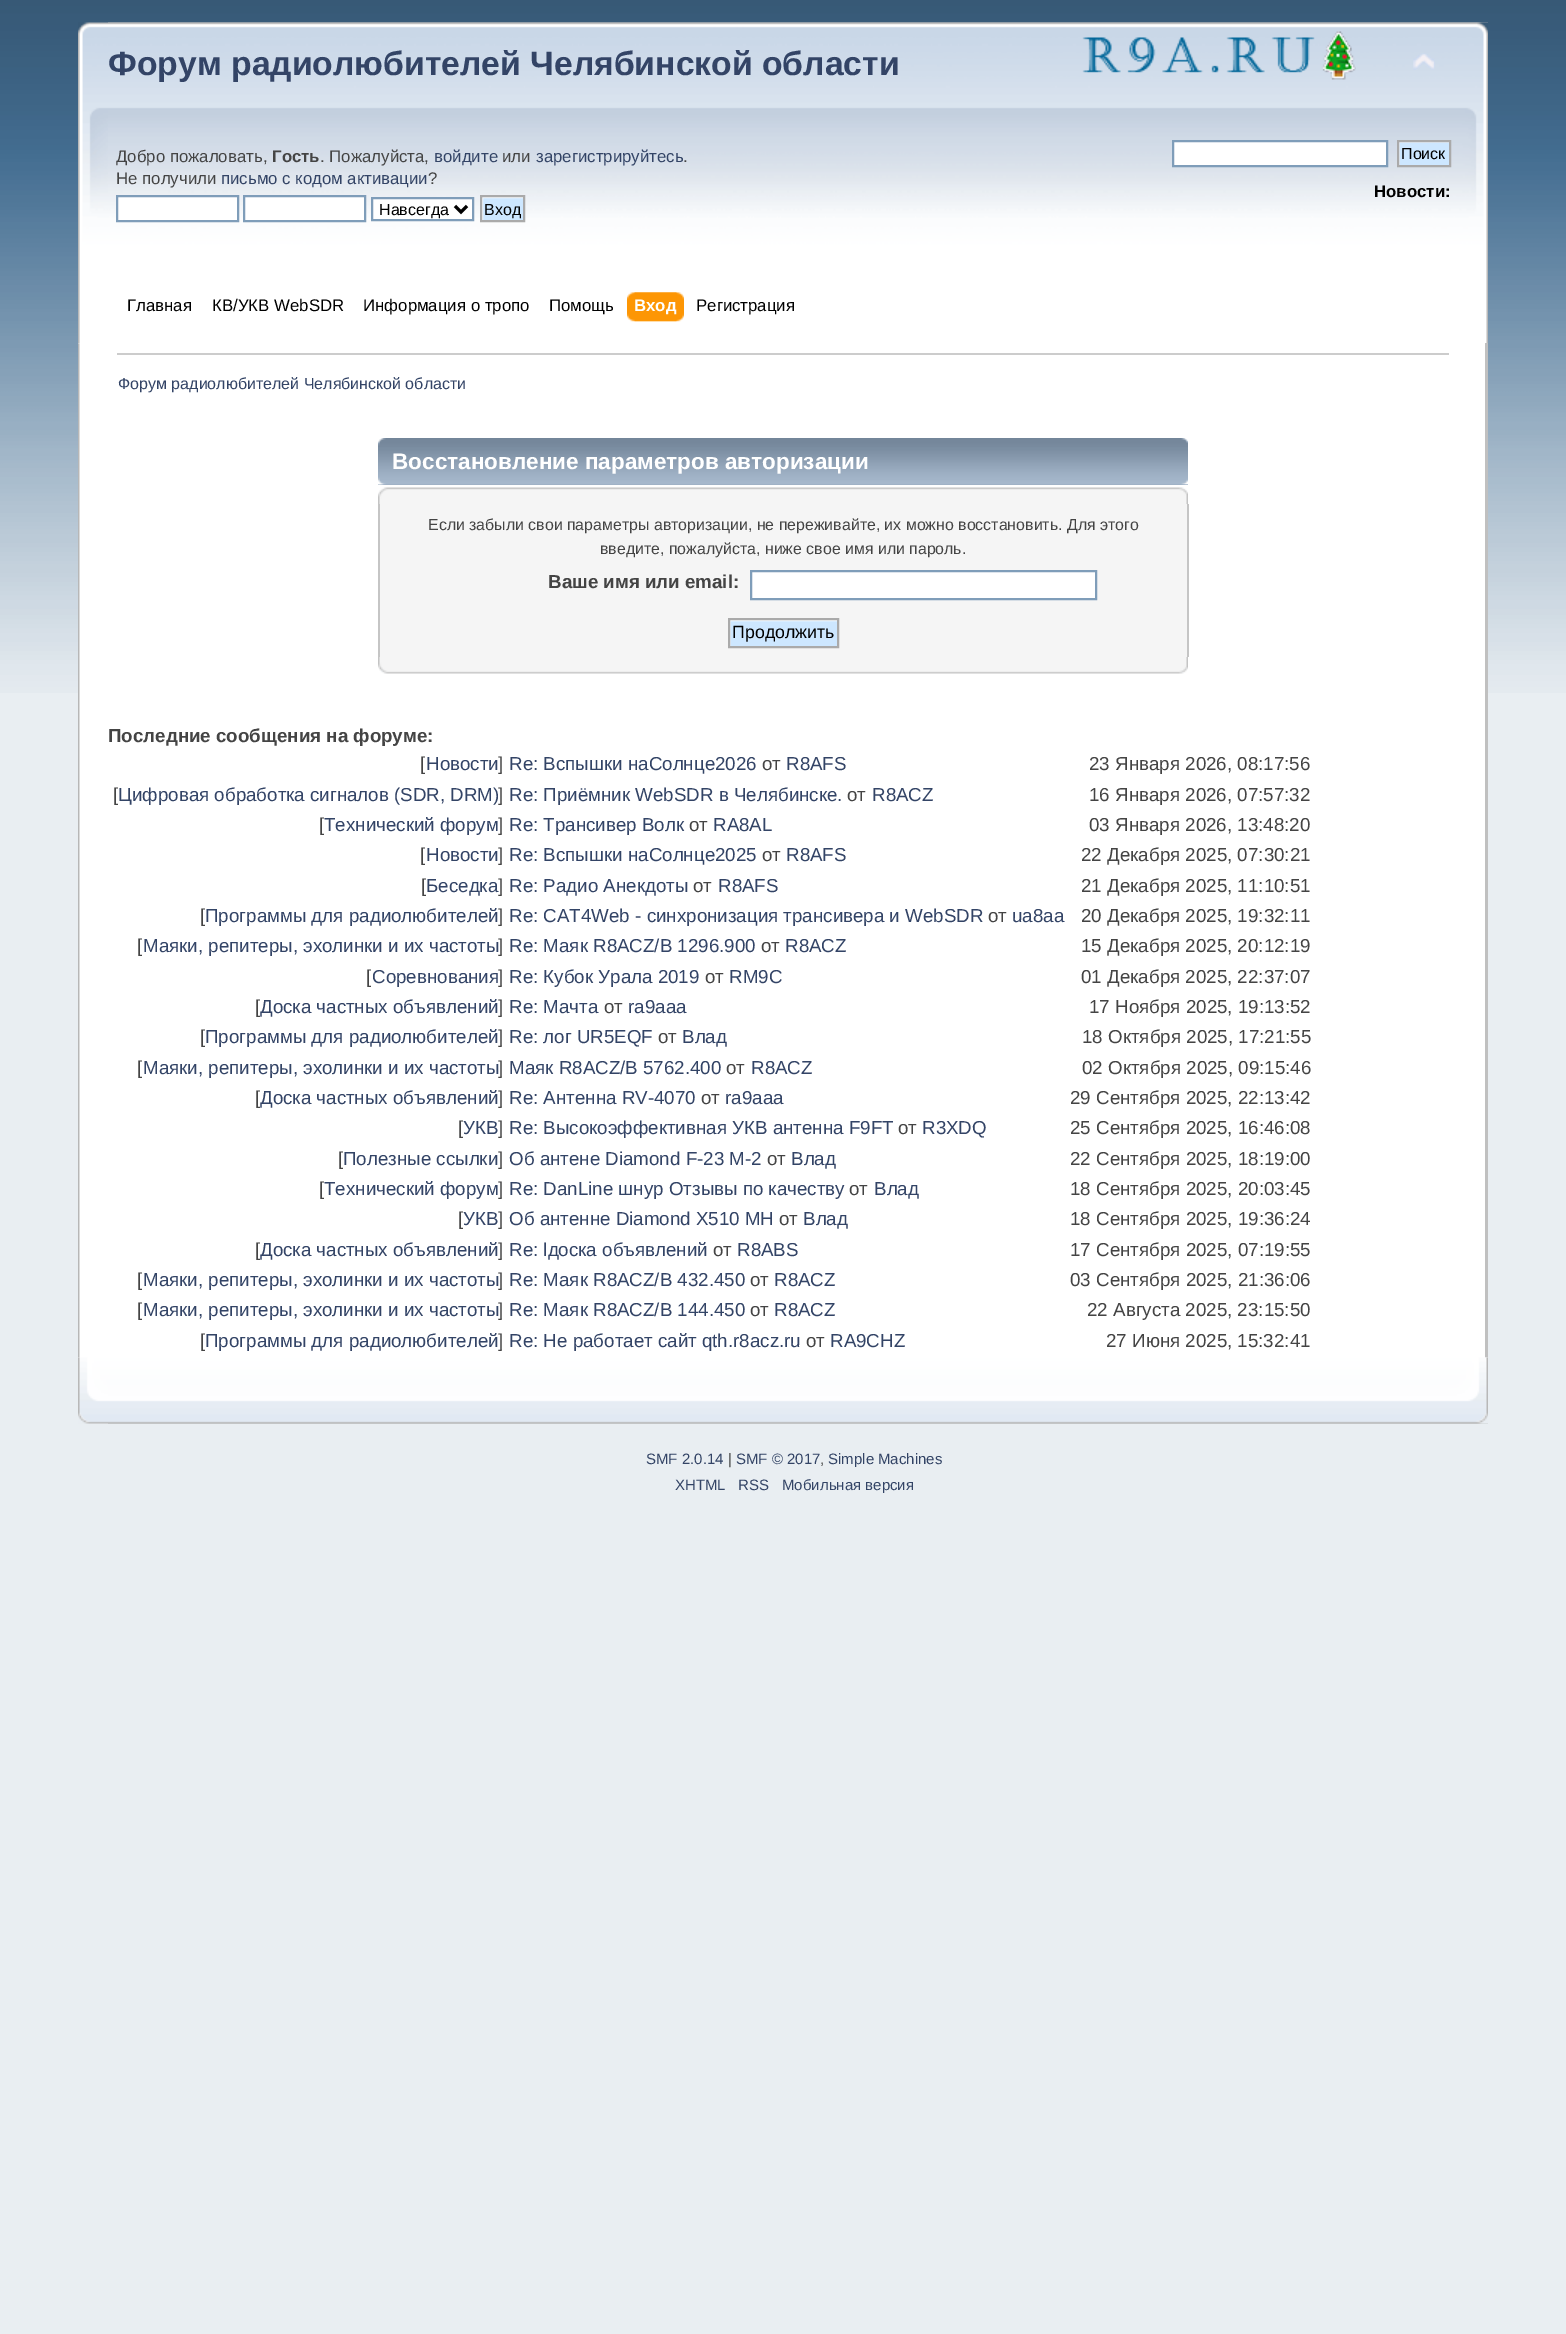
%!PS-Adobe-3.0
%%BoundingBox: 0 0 1566 2334
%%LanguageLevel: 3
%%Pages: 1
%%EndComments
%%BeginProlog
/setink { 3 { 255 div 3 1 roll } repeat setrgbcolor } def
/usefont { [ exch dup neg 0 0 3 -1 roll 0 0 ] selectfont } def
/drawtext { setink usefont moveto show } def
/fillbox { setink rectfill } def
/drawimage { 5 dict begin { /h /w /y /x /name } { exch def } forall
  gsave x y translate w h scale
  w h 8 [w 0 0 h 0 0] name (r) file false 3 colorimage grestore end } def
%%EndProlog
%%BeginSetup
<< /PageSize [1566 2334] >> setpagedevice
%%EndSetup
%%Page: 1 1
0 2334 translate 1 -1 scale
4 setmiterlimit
0 0 1566 2334 233 238 242 fillbox
(assets/img1.rgb) 0 0 1566 693 drawimage
(assets/img2.rgb) 78 22 1410 322 drawimage
(assets/img3.rgb) 108 22 1380 322 drawimage
(Форум радиолюбителей Челябинской области) 108 75 /LiberationSans-Bold 33.7 51 68 102 drawtext
(assets/img4.rgb) 1082 31 274 49 drawimage
(assets/img5.rgb) 1413 53 22 17 drawimage
gsave
116 140 667 94 rectclip
(Добро пожаловать,) 116 162 /LiberationSans-Regular 16.8 68 68 68 drawtext
grestore
(Гость) 272 162 /LiberationSans-Bold 16.8 68 68 68 drawtext
(. Пожалуйста,) 320 162 /LiberationSans-Regular 16.8 68 68 68 drawtext
(войдите) 434 162 /LiberationSans-Regular 16.8 51 68 102 drawtext
(или) 502 162 /LiberationSans-Regular 16.8 68 68 68 drawtext
(зарегистрируйтесь) 536 162 /LiberationSans-Regular 16.8 51 68 102 drawtext
(.) 683 162 /LiberationSans-Regular 16.8 68 68 68 drawtext
(Не получили) 116 184 /LiberationSans-Regular 16.8 68 68 68 drawtext
(письмо с кодом активации) 221 184 /LiberationSans-Regular 16.8 51 68 102 drawtext
(?) 428 184 /LiberationSans-Regular 16.8 68 68 68 drawtext
255 255 255 setink
117 196 moveto 238 196 lineto 238 221 lineto 117 221 lineto closepath gsave fill grestore
127 157 185 setink
2 setlinewidth
stroke
255 255 255 setink
244 196 moveto 365 196 lineto 365 221 lineto 244 221 lineto closepath gsave fill grestore
127 157 185 setink
stroke
255 255 255 setink
372 198 moveto 473 198 lineto 473 220 lineto 372 220 lineto closepath gsave fill grestore
127 157 185 setink
stroke
0 0 0 setink
3 setlinewidth
455 206 moveto 461 212 lineto 467 206 lineto stroke
(Навсегда) 379 215 /LiberationSans-Regular 16 0 0 0 drawtext
(assets/img6.rgb) 482 197 41 23 drawimage
170 170 170 setink
2 setlinewidth
481 196 43 25 rectstroke
(Вход) 484 215 /LiberationSans-Regular 16 0 0 0 drawtext
255 255 255 setink
1173 141 moveto 1387 141 lineto 1387 166 lineto 1173 166 lineto closepath gsave fill grestore
127 157 185 setink
stroke
(assets/img7.rgb) 1399 142 50 23 drawimage
170 170 170 setink
1398 141 52 25 rectstroke
(Поиск) 1401 159 /LiberationSans-Regular 16 0 0 0 drawtext
(Новости:) 1374 197 /LiberationSans-Bold 16.8 0 0 0 drawtext
(Главная) 127 311 /LiberationSans-Regular 16.8 0 0 0 drawtext
(КВ/УКВ WebSDR) 212 311 /LiberationSans-Regular 16.8 0 0 0 drawtext
(Информация о тропо) 363 311 /LiberationSans-Regular 16.8 0 0 0 drawtext
(Помощь) 549 311 /LiberationSans-Regular 16.8 0 0 0 drawtext
(assets/img8.rgb) 634 292 50 30 drawimage
(assets/img9.rgb) 627 292 50 30 drawimage
(Вход) 634 311 /LiberationSans-Bold 16.8 255 255 255 drawtext
(Регистрация) 696 311 /LiberationSans-Regular 16.8 0 0 0 drawtext
(assets/img10.rgb) 78 343 1407 1015 drawimage
1485 343 3 1015 192 192 192 fillbox
117 353 1332 2 204 204 204 fillbox
(Форум радиолюбителей Челябинской области) 118 389 /LiberationSans-Regular 16 51 68 102 drawtext
378 484 810 1 153 171 191 fillbox
(assets/img11.rgb) 378 438 810 47 drawimage
(assets/img12.rgb) 1181 438 7 47 drawimage
(Восстановление параметров авторизации) 392 469 /LiberationSans-Bold 22.5 255 255 255 drawtext
(assets/img13.rgb) 378 487 801 17 drawimage
(assets/img14.rgb) 1179 487 9 17 drawimage
380 504 807 153 245 245 245 fillbox
1187 504 2 153 197 197 197 fillbox
378 504 2 153 197 197 197 fillbox
(Если забыли свои параметры авторизации, не переживайте, их можно восстановить. Для этого) 428 530 /LiberationSans-Regular 15.9 68 68 68 drawtext
(введите, пожалуйста, ниже свое имя или пароль.) 600 554 /LiberationSans-Regular 15.9 68 68 68 drawtext
(Ваше имя или email:) 548 588 /LiberationSans-Bold 18.75 68 68 68 drawtext
255 255 255 setink
751 571 moveto 1096 571 lineto 1096 599 lineto 751 599 lineto closepath gsave fill grestore
127 157 185 setink
stroke
(assets/img15.rgb) 730 620 107 26 drawimage
170 170 170 setink
729 619 109 28 rectstroke
(Продолжить) 732 638 /LiberationSans-Regular 17.75 0 0 0 drawtext
(assets/img16.rgb) 378 657 801 17 drawimage
(assets/img17.rgb) 1179 657 9 17 drawimage
(Последние сообщения на форуме:) 108 742 /LiberationSans-Bold 18.75 68 68 68 drawtext
([) 420 770 /LiberationSans-Regular 18.75 68 68 68 drawtext
(Новости) 426 770 /LiberationSans-Regular 18.75 51 68 102 drawtext
(]) 498 770 /LiberationSans-Regular 18.75 68 68 68 drawtext
(Re: Вспышки наСолнце2026) 509 770 /LiberationSans-Regular 18.75 51 68 102 drawtext
(от) 762 770 /LiberationSans-Regular 18.75 68 68 68 drawtext
(R8AFS) 786 770 /LiberationSans-Regular 18.75 51 68 102 drawtext
(23 Января 2026, 08:17:56) 1089 770 /LiberationSans-Regular 18.75 68 68 68 drawtext
([) 113 801 /LiberationSans-Regular 18.75 68 68 68 drawtext
(Цифровая обработка сигналов \(SDR, DRM\)) 118 801 /LiberationSans-Regular 18.75 51 68 102 drawtext
(]) 498 801 /LiberationSans-Regular 18.75 68 68 68 drawtext
(Re: Приёмник WebSDR в Челябинске.) 509 801 /LiberationSans-Regular 18.75 51 68 102 drawtext
(от) 847 801 /LiberationSans-Regular 18.75 68 68 68 drawtext
(R8ACZ) 872 801 /LiberationSans-Regular 18.75 51 68 102 drawtext
(16 Января 2026, 07:57:32) 1089 801 /LiberationSans-Regular 18.75 68 68 68 drawtext
([) 319 831 /LiberationSans-Regular 18.75 68 68 68 drawtext
(Технический форум) 324 831 /LiberationSans-Regular 18.75 51 68 102 drawtext
(]) 498 831 /LiberationSans-Regular 18.75 68 68 68 drawtext
(Re: Трансивер Волк) 509 831 /LiberationSans-Regular 18.75 51 68 102 drawtext
(от) 689 831 /LiberationSans-Regular 18.75 68 68 68 drawtext
(RA8AL) 713 831 /LiberationSans-Regular 18.75 51 68 102 drawtext
(03 Января 2026, 13:48:20) 1089 831 /LiberationSans-Regular 18.75 68 68 68 drawtext
([) 420 861 /LiberationSans-Regular 18.75 68 68 68 drawtext
(Новости) 426 861 /LiberationSans-Regular 18.75 51 68 102 drawtext
(]) 498 861 /LiberationSans-Regular 18.75 68 68 68 drawtext
(Re: Вспышки наСолнце2025) 509 861 /LiberationSans-Regular 18.75 51 68 102 drawtext
(от) 762 861 /LiberationSans-Regular 18.75 68 68 68 drawtext
(R8AFS) 786 861 /LiberationSans-Regular 18.75 51 68 102 drawtext
(22 Декабря 2025, 07:30:21) 1081 861 /LiberationSans-Regular 18.75 68 68 68 drawtext
([) 421 892 /LiberationSans-Regular 18.75 68 68 68 drawtext
(Беседка) 426 892 /LiberationSans-Regular 18.75 51 68 102 drawtext
(]) 498 892 /LiberationSans-Regular 18.75 68 68 68 drawtext
(Re: Радио Анекдоты) 509 892 /LiberationSans-Regular 18.75 51 68 102 drawtext
(от) 693 892 /LiberationSans-Regular 18.75 68 68 68 drawtext
(R8AFS) 718 892 /LiberationSans-Regular 18.75 51 68 102 drawtext
(21 Декабря 2025, 11:10:51) 1081 892 /LiberationSans-Regular 18.75 68 68 68 drawtext
([) 200 922 /LiberationSans-Regular 18.75 68 68 68 drawtext
(Программы для радиолюбителей) 205 922 /LiberationSans-Regular 18.75 51 68 102 drawtext
(]) 498 922 /LiberationSans-Regular 18.75 68 68 68 drawtext
(Re: CAT4Web - синхронизация трансивера и WebSDR) 509 922 /LiberationSans-Regular 18.75 51 68 102 drawtext
(от) 988 922 /LiberationSans-Regular 18.75 68 68 68 drawtext
(ua8aa) 1012 922 /LiberationSans-Regular 18.75 51 68 102 drawtext
(20 Декабря 2025, 19:32:11) 1081 922 /LiberationSans-Regular 18.75 68 68 68 drawtext
([) 137 952 /LiberationSans-Regular 18.75 68 68 68 drawtext
(Маяки, репитеры, эхолинки и их частоты) 143 952 /LiberationSans-Regular 18.75 51 68 102 drawtext
(]) 498 952 /LiberationSans-Regular 18.75 68 68 68 drawtext
(Re: Маяк R8ACZ/B 1296.900) 509 952 /LiberationSans-Regular 18.75 51 68 102 drawtext
(от) 761 952 /LiberationSans-Regular 18.75 68 68 68 drawtext
(R8ACZ) 785 952 /LiberationSans-Regular 18.75 51 68 102 drawtext
(15 Декабря 2025, 20:12:19) 1081 952 /LiberationSans-Regular 18.75 68 68 68 drawtext
([) 366 983 /LiberationSans-Regular 18.75 68 68 68 drawtext
(Соревнования) 372 983 /LiberationSans-Regular 18.75 51 68 102 drawtext
(]) 498 983 /LiberationSans-Regular 18.75 68 68 68 drawtext
(Re: Кубок Урала 2019) 509 983 /LiberationSans-Regular 18.75 51 68 102 drawtext
(от) 705 983 /LiberationSans-Regular 18.75 68 68 68 drawtext
(RM9C) 729 983 /LiberationSans-Regular 18.75 51 68 102 drawtext
(01 Декабря 2025, 22:37:07) 1081 983 /LiberationSans-Regular 18.75 68 68 68 drawtext
([) 255 1013 /LiberationSans-Regular 18.75 68 68 68 drawtext
(Доска частных объявлений) 260 1013 /LiberationSans-Regular 18.75 51 68 102 drawtext
(]) 498 1013 /LiberationSans-Regular 18.75 68 68 68 drawtext
(Re: Мачта) 509 1013 /LiberationSans-Regular 18.75 51 68 102 drawtext
(от) 604 1013 /LiberationSans-Regular 18.75 68 68 68 drawtext
(ra9aaa) 628 1013 /LiberationSans-Regular 18.75 51 68 102 drawtext
(17 Ноября 2025, 19:13:52) 1089 1013 /LiberationSans-Regular 18.75 68 68 68 drawtext
([) 200 1043 /LiberationSans-Regular 18.75 68 68 68 drawtext
(Программы для радиолюбителей) 205 1043 /LiberationSans-Regular 18.75 51 68 102 drawtext
(]) 498 1043 /LiberationSans-Regular 18.75 68 68 68 drawtext
(Re: лог UR5EQF) 509 1043 /LiberationSans-Regular 18.75 51 68 102 drawtext
(от) 658 1043 /LiberationSans-Regular 18.75 68 68 68 drawtext
(Влад) 682 1043 /LiberationSans-Regular 18.75 51 68 102 drawtext
(18 Октября 2025, 17:21:55) 1082 1043 /LiberationSans-Regular 18.75 68 68 68 drawtext
([) 137 1074 /LiberationSans-Regular 18.75 68 68 68 drawtext
(Маяки, репитеры, эхолинки и их частоты) 143 1074 /LiberationSans-Regular 18.75 51 68 102 drawtext
(]) 498 1074 /LiberationSans-Regular 18.75 68 68 68 drawtext
(Маяк R8ACZ/B 5762.400) 509 1074 /LiberationSans-Regular 18.75 51 68 102 drawtext
(от) 726 1074 /LiberationSans-Regular 18.75 68 68 68 drawtext
(R8ACZ) 751 1074 /LiberationSans-Regular 18.75 51 68 102 drawtext
(02 Октября 2025, 09:15:46) 1082 1074 /LiberationSans-Regular 18.75 68 68 68 drawtext
([) 255 1104 /LiberationSans-Regular 18.75 68 68 68 drawtext
(Доска частных объявлений) 260 1104 /LiberationSans-Regular 18.75 51 68 102 drawtext
(]) 498 1104 /LiberationSans-Regular 18.75 68 68 68 drawtext
(Re: Антенна RV-4070) 509 1104 /LiberationSans-Regular 18.75 51 68 102 drawtext
(от) 701 1104 /LiberationSans-Regular 18.75 68 68 68 drawtext
(ra9aaa) 725 1104 /LiberationSans-Regular 18.75 51 68 102 drawtext
(29 Сентября 2025, 22:13:42) 1070 1104 /LiberationSans-Regular 18.75 68 68 68 drawtext
([) 458 1134 /LiberationSans-Regular 18.75 68 68 68 drawtext
(УКВ) 463 1134 /LiberationSans-Regular 18.75 51 68 102 drawtext
(]) 498 1134 /LiberationSans-Regular 18.75 68 68 68 drawtext
(Re: Высокоэффективная УКВ антенна F9FT) 509 1134 /LiberationSans-Regular 18.75 51 68 102 drawtext
(от) 898 1134 /LiberationSans-Regular 18.75 68 68 68 drawtext
(R3XDQ) 922 1134 /LiberationSans-Regular 18.75 51 68 102 drawtext
(25 Сентября 2025, 16:46:08) 1070 1134 /LiberationSans-Regular 18.75 68 68 68 drawtext
([) 338 1165 /LiberationSans-Regular 18.75 68 68 68 drawtext
(Полезные ссылки) 343 1165 /LiberationSans-Regular 18.75 51 68 102 drawtext
(]) 498 1165 /LiberationSans-Regular 18.75 68 68 68 drawtext
(Об антене Diamond F-23 M-2) 509 1165 /LiberationSans-Regular 18.75 51 68 102 drawtext
(от) 767 1165 /LiberationSans-Regular 18.75 68 68 68 drawtext
(Влад) 791 1165 /LiberationSans-Regular 18.75 51 68 102 drawtext
(22 Сентября 2025, 18:19:00) 1070 1165 /LiberationSans-Regular 18.75 68 68 68 drawtext
([) 319 1195 /LiberationSans-Regular 18.75 68 68 68 drawtext
(Технический форум) 324 1195 /LiberationSans-Regular 18.75 51 68 102 drawtext
(]) 498 1195 /LiberationSans-Regular 18.75 68 68 68 drawtext
(Re: DanLine шнур Отзывы по качеству) 509 1195 /LiberationSans-Regular 18.75 51 68 102 drawtext
(от) 849 1195 /LiberationSans-Regular 18.75 68 68 68 drawtext
(Влад) 874 1195 /LiberationSans-Regular 18.75 51 68 102 drawtext
(18 Сентября 2025, 20:03:45) 1070 1195 /LiberationSans-Regular 18.75 68 68 68 drawtext
([) 458 1225 /LiberationSans-Regular 18.75 68 68 68 drawtext
(УКВ) 463 1225 /LiberationSans-Regular 18.75 51 68 102 drawtext
(]) 498 1225 /LiberationSans-Regular 18.75 68 68 68 drawtext
(Об антенне Diamond X510 MH) 509 1225 /LiberationSans-Regular 18.75 51 68 102 drawtext
(от) 779 1225 /LiberationSans-Regular 18.75 68 68 68 drawtext
(Влад) 803 1225 /LiberationSans-Regular 18.75 51 68 102 drawtext
(18 Сентября 2025, 19:36:24) 1070 1225 /LiberationSans-Regular 18.75 68 68 68 drawtext
([) 255 1256 /LiberationSans-Regular 18.75 68 68 68 drawtext
(Доска частных объявлений) 260 1256 /LiberationSans-Regular 18.75 51 68 102 drawtext
(]) 498 1256 /LiberationSans-Regular 18.75 68 68 68 drawtext
(Re: lдоска объявлений) 509 1256 /LiberationSans-Regular 18.75 51 68 102 drawtext
(от) 713 1256 /LiberationSans-Regular 18.75 68 68 68 drawtext
(R8ABS) 737 1256 /LiberationSans-Regular 18.75 51 68 102 drawtext
(17 Сентября 2025, 07:19:55) 1070 1256 /LiberationSans-Regular 18.75 68 68 68 drawtext
([) 137 1286 /LiberationSans-Regular 18.75 68 68 68 drawtext
(Маяки, репитеры, эхолинки и их частоты) 143 1286 /LiberationSans-Regular 18.75 51 68 102 drawtext
(]) 498 1286 /LiberationSans-Regular 18.75 68 68 68 drawtext
(Re: Маяк R8ACZ/B 432.450) 509 1286 /LiberationSans-Regular 18.75 51 68 102 drawtext
(от) 750 1286 /LiberationSans-Regular 18.75 68 68 68 drawtext
(R8ACZ) 774 1286 /LiberationSans-Regular 18.75 51 68 102 drawtext
(03 Сентября 2025, 21:36:06) 1070 1286 /LiberationSans-Regular 18.75 68 68 68 drawtext
([) 137 1316 /LiberationSans-Regular 18.75 68 68 68 drawtext
(Маяки, репитеры, эхолинки и их частоты) 143 1316 /LiberationSans-Regular 18.75 51 68 102 drawtext
(]) 498 1316 /LiberationSans-Regular 18.75 68 68 68 drawtext
(Re: Маяк R8ACZ/B 144.450) 509 1316 /LiberationSans-Regular 18.75 51 68 102 drawtext
(от) 750 1316 /LiberationSans-Regular 18.75 68 68 68 drawtext
(R8ACZ) 774 1316 /LiberationSans-Regular 18.75 51 68 102 drawtext
(22 Августа 2025, 23:15:50) 1087 1316 /LiberationSans-Regular 18.75 68 68 68 drawtext
([) 200 1347 /LiberationSans-Regular 18.75 68 68 68 drawtext
(Программы для радиолюбителей) 205 1347 /LiberationSans-Regular 18.75 51 68 102 drawtext
(]) 498 1347 /LiberationSans-Regular 18.75 68 68 68 drawtext
(Re: Не работает сайт qth.r8acz.ru) 509 1347 /LiberationSans-Regular 18.75 51 68 102 drawtext
(от) 806 1347 /LiberationSans-Regular 18.75 68 68 68 drawtext
(RA9CHZ) 830 1347 /LiberationSans-Regular 18.75 51 68 102 drawtext
(27 Июня 2025, 15:32:41) 1106 1347 /LiberationSans-Regular 18.75 68 68 68 drawtext
(assets/img18.rgb) 78 1357 1410 67 drawimage
(assets/img19.rgb) 108 1357 1380 67 drawimage
(SMF 2.0.14) 646 1464 /LiberationSans-Regular 15 51 68 102 drawtext
(|) 728 1464 /LiberationSans-Regular 15 68 68 68 drawtext
(SMF © 2017) 736 1464 /LiberationSans-Regular 15 51 68 102 drawtext
(,) 820 1464 /LiberationSans-Regular 15 68 68 68 drawtext
(Simple Machines) 828 1464 /LiberationSans-Regular 15 51 68 102 drawtext
(XHTML) 675 1490 /LiberationSans-Regular 15 51 68 102 drawtext
(RSS) 738 1490 /LiberationSans-Regular 15 51 68 102 drawtext
(Мобильная версия) 782 1490 /LiberationSans-Regular 15 51 68 102 drawtext
showpage
%%EOF
